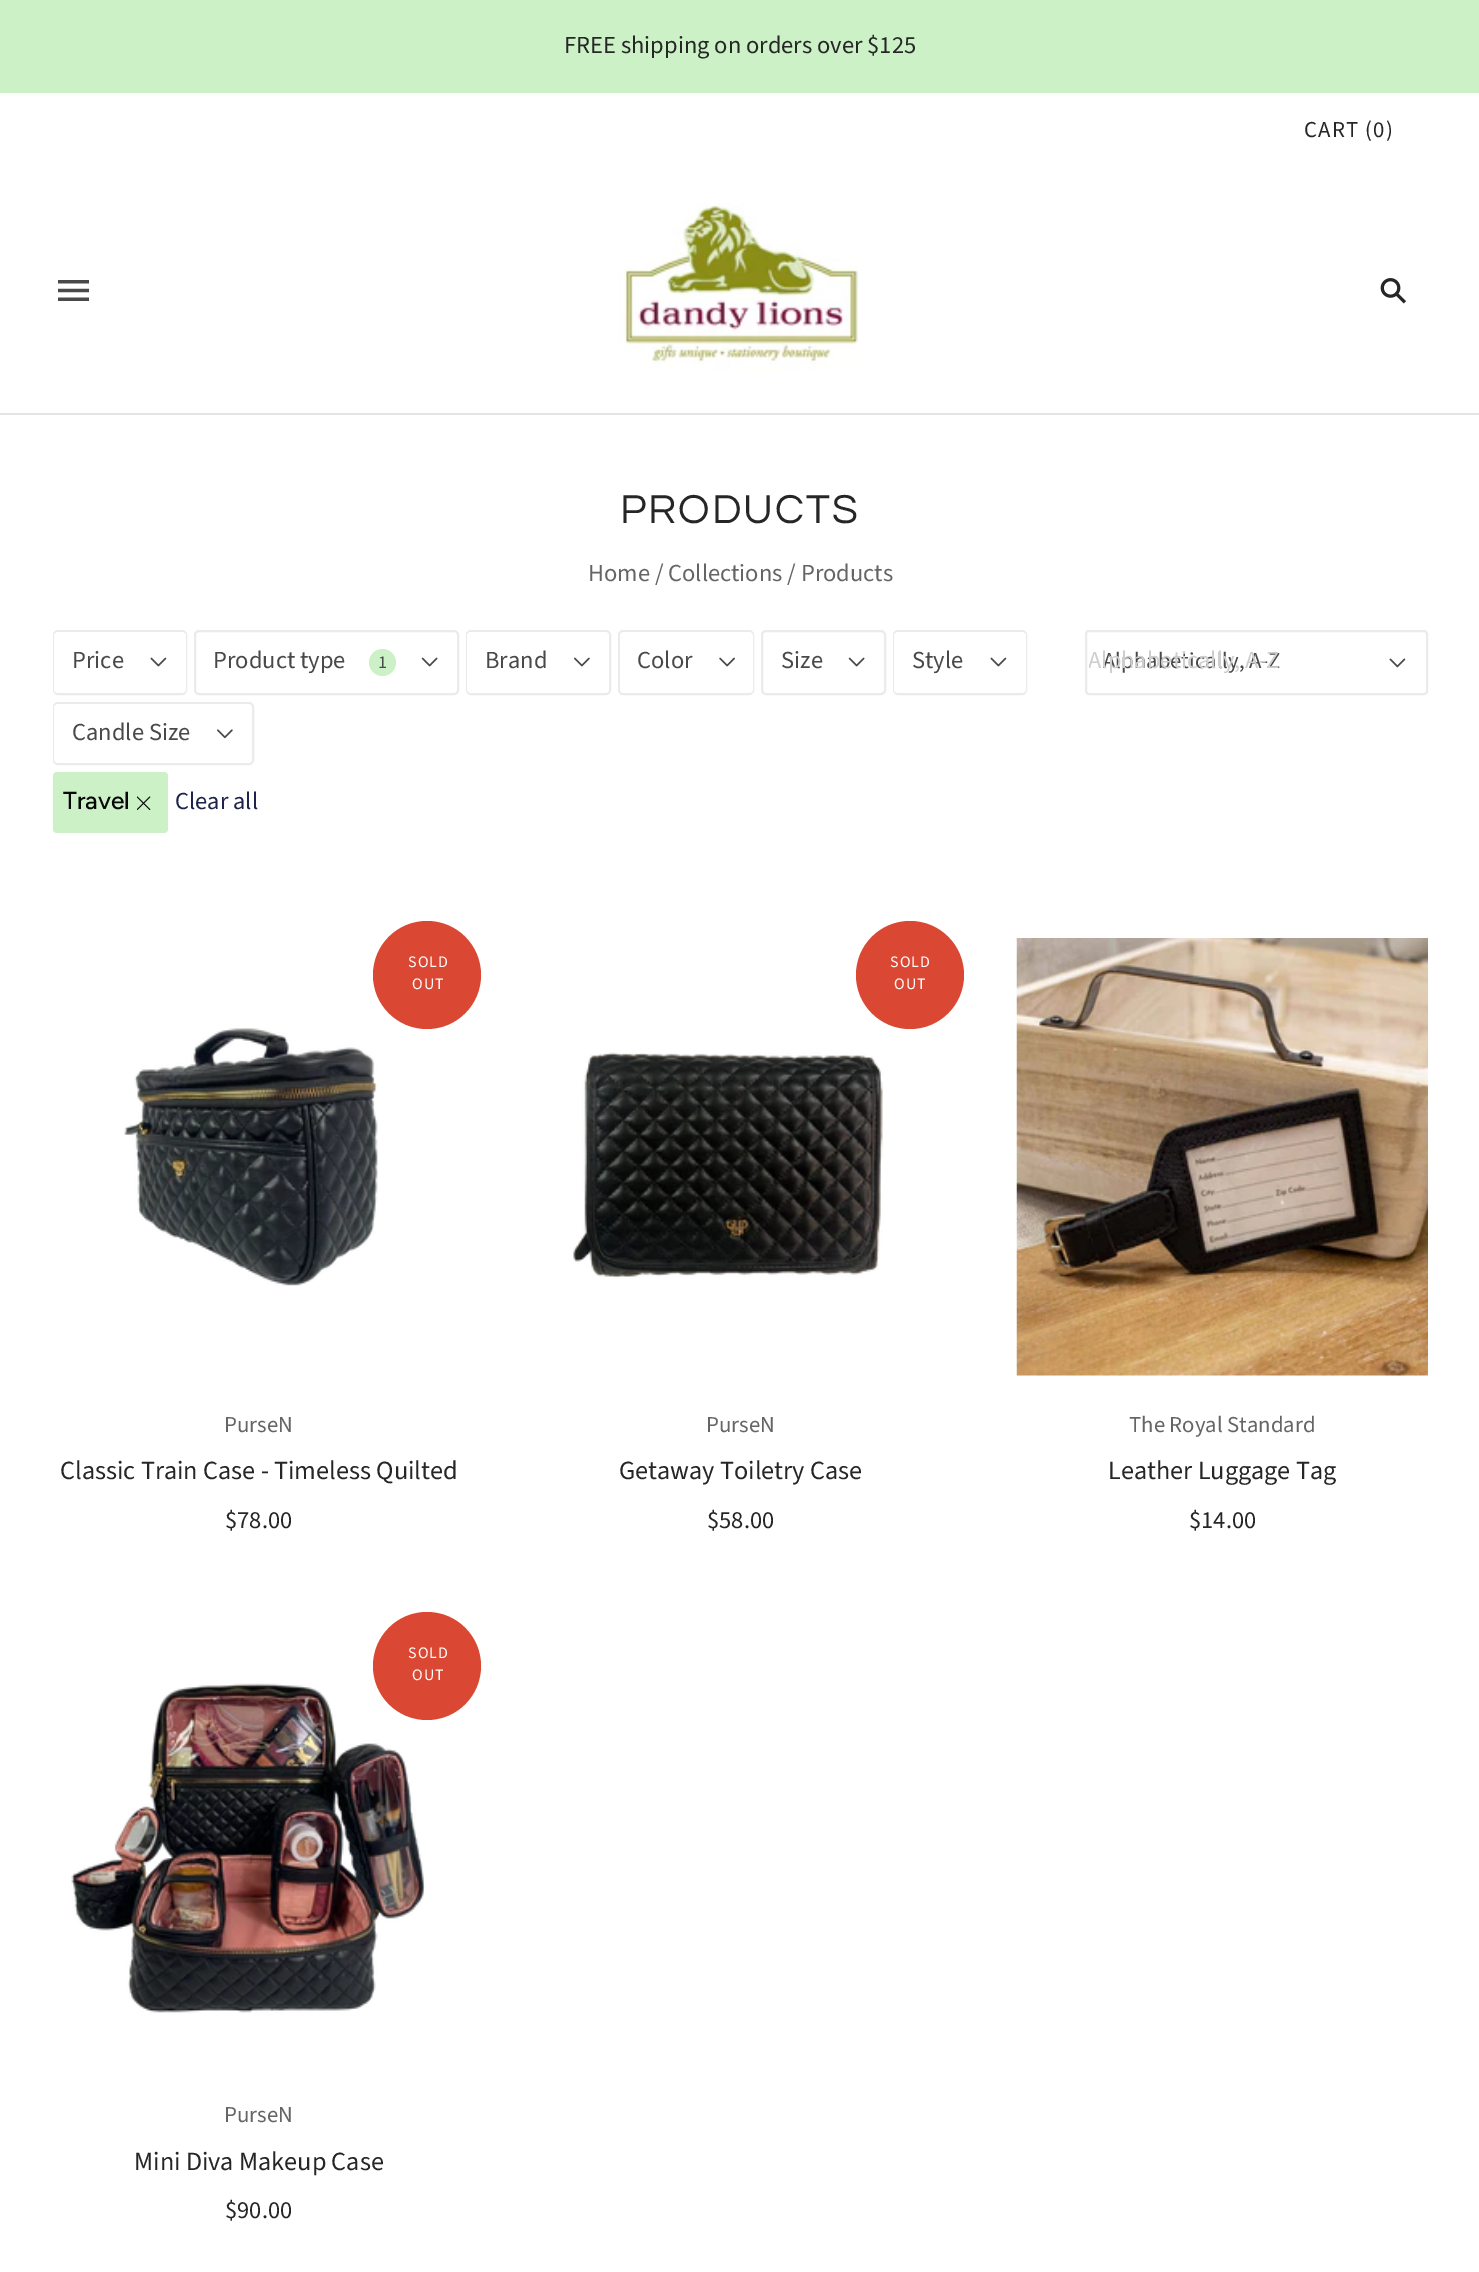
%!PS-Adobe-3.0
%%BoundingBox: 0 0 1479 2272
%%LanguageLevel: 3
%%Pages: 1
%%EndComments
%%BeginProlog
/setink { 3 { 255 div 3 1 roll } repeat setrgbcolor } def
/usefont { [ exch dup neg 0 0 3 -1 roll 0 0 ] selectfont } def
/drawtext { setink usefont moveto show } def
/fillbox { setink rectfill } def
/disc { newpath 0 360 arc closepath } def
/rrect { 5 dict begin { /r /h /w /y /x } { exch def } forall
  x r add y moveto x w add y 2 copy h add r arct x w add y h add x 1 index r arct
  x y h add x y r arct x y 2 copy exch w add exch r arct closepath end } def
/drawimage { 5 dict begin { /h /w /y /x /name } { exch def } forall
  gsave x y translate w h scale
  w h 8 [w 0 0 h 0 0] name (r) file false 3 colorimage grestore end } def
%%EndProlog
%%BeginSetup
<< /PageSize [1479 2272] >> setpagedevice
%%EndSetup
%%Page: 1 1
0 2272 translate 1 -1 scale
4 setmiterlimit
0 0 1479 2272 255 255 255 fillbox
0 0 1479 93 205 241 199 fillbox
(FREE shipping on orders over $125) 564 53 /SourceSansPro-Regular 24.5 38 38 38 drawtext
0 413 1479 2 228 228 228 fillbox
/SourceSansPro-Regular 22.75 usefont
38 38 38 setink
1304 137 moveto 1.25 0 (CART \(0\)) ashow
(assets/img1.rgb) 58 280 31 21 drawimage
(assets/img2.rgb) 618 203 241 168 drawimage
(assets/img3.rgb) 1380 278 26 26 drawimage
/Questrial-Regular 42 usefont
620 523 moveto 2 0 (PRODUCTS) ashow
(Home / Collections / Products) 588 581 /SourceSansPro-Regular 24.5 101 101 101 drawtext
235 235 235 setink
2 setlinewidth
54 631 132 63 4 rrect stroke
255 255 255 setink
54 632 132 61 4 rrect fill
(Price) 72 668 /SourceSansPro-Regular 24.5 73 73 73 drawtext
(assets/img4.rgb) 150 657 17 10 drawimage
235 235 235 setink
195 631 263 63 4 rrect stroke
(Product type) 213 668 /SourceSansPro-Regular 24.5 73 73 73 drawtext
205 241 199 setink
382.5 662.5 13.5 disc fill
(1) 378 668 /SourceSansPro-Regular 18 73 73 73 drawtext
(assets/img5.rgb) 421 657 17 10 drawimage
235 235 235 setink
467 631 143 63 4 rrect stroke
255 255 255 setink
467 632 142 61 4 rrect fill
(Brand) 485 668 /SourceSansPro-Regular 24.5 73 73 73 drawtext
(assets/img6.rgb) 574 657 16 10 drawimage
235 235 235 setink
619 631 134 63 4 rrect stroke
255 255 255 setink
620 632 133 61 4 rrect fill
(Color) 637 668 /SourceSansPro-Regular 24.5 73 73 73 drawtext
(assets/img7.rgb) 719 657 16 10 drawimage
235 235 235 setink
762 631 123 63 4 rrect stroke
(Size) 781 668 /SourceSansPro-Regular 24.5 73 73 73 drawtext
(assets/img5.rgb) 848 657 17 10 drawimage
235 235 235 setink
894 631 132 63 4 rrect stroke
255 255 255 setink
894 632 132 61 4 rrect fill
(Style) 912 668 /SourceSansPro-Regular 24.5 73 73 73 drawtext
(assets/img4.rgb) 990 657 17 10 drawimage
235 235 235 setink
54 703 199 61 4 rrect stroke
255 255 255 setink
54 704 198 59 4 rrect fill
(Candle Size) 72 740 /SourceSansPro-Regular 24.5 73 73 73 drawtext
(assets/img8.rgb) 217 729 16 10 drawimage
235 235 235 setink
1086 631 341 63 3 rrect stroke
(Alphabetically, A-Z) 1103 668 /SourceSansPro-Regular 22.75 73 73 73 drawtext
gsave
1089 642 336 41 rectclip
(Alphabetically, A-Z) 1088 668 /SourceSansPro-Regular 24.5 206 206 206 drawtext
grestore
(assets/img9.rgb) 1389 658 17 10 drawimage
205 241 199 setink
53 772 115 61 4 rrect fill
(Travel) 63 809 /Figtree-Medium 24.5 8 8 8 drawtext
(assets/img10.rgb) 137 796 14 14 drawimage
(Clear all) 175 809 /SourceSansPro-Regular 24.5 29 35 73 drawtext
(assets/img11.rgb) 124 1028 254 258 drawimage
218 72 51 setink
427 975 54 disc fill
/SourceSansPro-Regular 16 usefont
255 255 255 setink
408 967 moveto 1 0 (SOLD) ashow
412 989 moveto 1 0 (OUT) ashow
(PurseN) 224 1432 /SourceSansPro-Regular 22.75 101 101 101 drawtext
(Classic Train Case - Timeless Quilted) 60 1479 /SourceSansPro-Regular 26.25 38 38 38 drawtext
($78.00) 225 1528 /SourceSansPro-Regular 24.5 38 38 38 drawtext
218 72 51 setink
910 975 54 disc fill
/SourceSansPro-Regular 16 usefont
255 255 255 setink
890 967 moveto 1 0 (SOLD) ashow
894 989 moveto 1 0 (OUT) ashow
(assets/img12.rgb) 573 1052 310 226 drawimage
(PurseN) 706 1432 /SourceSansPro-Regular 22.75 101 101 101 drawtext
(Getaway Toiletry Case) 619 1479 /SourceSansPro-Regular 26.25 38 38 38 drawtext
($58.00) 707 1528 /SourceSansPro-Regular 24.5 38 38 38 drawtext
(assets/img13.rgb) 1016 938 412 438 drawimage
(The Royal Standard) 1129 1432 /SourceSansPro-Regular 22.75 101 101 101 drawtext
(Leather Luggage Tag) 1108 1479 /SourceSansPro-Regular 26.25 38 38 38 drawtext
($14.00) 1189 1528 /SourceSansPro-Regular 24.5 38 38 38 drawtext
(assets/img14.rgb) 71 1683 354 330 drawimage
218 72 51 setink
427 1666 54 disc fill
/SourceSansPro-Regular 16 usefont
255 255 255 setink
408 1658 moveto 1 0 (SOLD) ashow
412 1680 moveto 1 0 (OUT) ashow
(PurseN) 224 2122 /SourceSansPro-Regular 22.75 101 101 101 drawtext
(Mini Diva Makeup Case) 134 2170 /SourceSansPro-Regular 26.25 38 38 38 drawtext
($90.00) 225 2218 /SourceSansPro-Regular 24.5 38 38 38 drawtext
showpage
%%EOF
